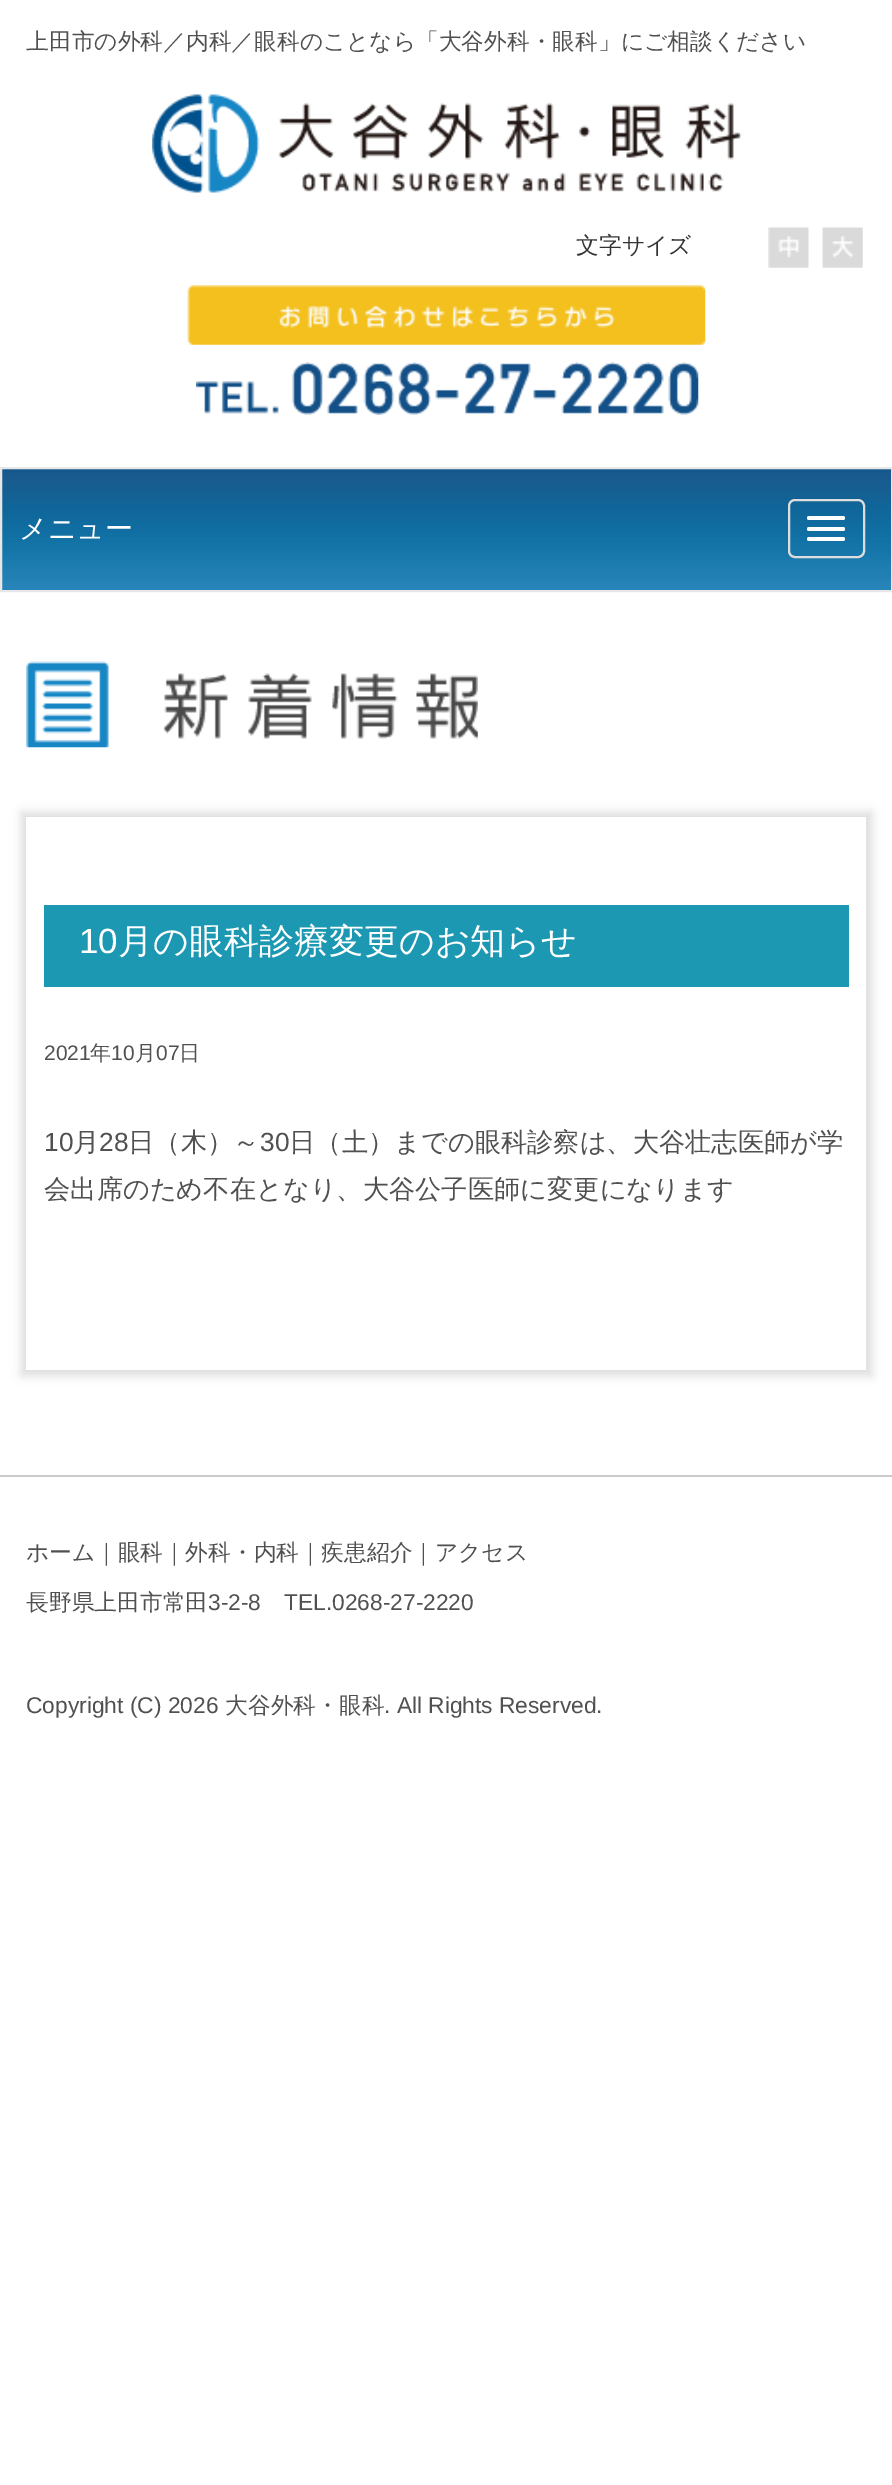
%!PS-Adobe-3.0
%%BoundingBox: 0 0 892 2485
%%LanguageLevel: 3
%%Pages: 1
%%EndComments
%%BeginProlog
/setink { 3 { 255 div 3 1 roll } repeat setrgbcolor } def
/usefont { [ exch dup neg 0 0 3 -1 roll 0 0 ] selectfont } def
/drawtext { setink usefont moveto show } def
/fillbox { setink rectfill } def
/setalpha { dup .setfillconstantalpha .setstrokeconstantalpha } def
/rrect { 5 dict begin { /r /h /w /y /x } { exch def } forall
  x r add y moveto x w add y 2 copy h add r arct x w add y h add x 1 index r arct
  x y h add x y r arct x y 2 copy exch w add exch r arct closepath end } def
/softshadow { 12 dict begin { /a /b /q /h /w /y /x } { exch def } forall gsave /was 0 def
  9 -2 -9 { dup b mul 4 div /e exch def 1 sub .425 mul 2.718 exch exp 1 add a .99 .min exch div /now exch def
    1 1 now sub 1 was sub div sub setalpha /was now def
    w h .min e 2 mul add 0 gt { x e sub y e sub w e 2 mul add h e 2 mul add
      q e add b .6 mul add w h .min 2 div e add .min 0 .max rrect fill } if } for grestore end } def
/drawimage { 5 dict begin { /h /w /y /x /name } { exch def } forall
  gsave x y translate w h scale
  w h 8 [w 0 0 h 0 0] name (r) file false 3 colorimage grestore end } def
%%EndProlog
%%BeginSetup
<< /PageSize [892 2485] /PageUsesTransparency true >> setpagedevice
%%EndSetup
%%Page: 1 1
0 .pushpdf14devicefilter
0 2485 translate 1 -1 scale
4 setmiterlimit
0 0 892 2485 255 255 255 fillbox
(上田市の外科／内科／眼科のことなら「大谷外科・眼科」にご相談ください) 26 49 /WenQuanYiZenHei-Medium 22.75 80 80 80 drawtext
(assets/img1.rgb) 152 94 589 99 drawimage
(文字サイズ) 576 253 /WenQuanYiZenHei-Medium 22.75 51 51 51 drawtext
(assets/img2.rgb) 768 227 41 41 drawimage
(assets/img3.rgb) 822 227 41 41 drawimage
(assets/img4.rgb) 187 285 519 60 drawimage
(assets/img5.rgb) 196 362 503 53 drawimage
(assets/img6.rgb) 2 469 889 121 drawimage
231 231 231 setink
2 setlinewidth
1 468 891 123 rectstroke
(メニュー) 19 538 /WenQuanYiZenHei-Medium 28 255 255 255 drawtext
221 221 221 setink
789 500 75 57 6 rrect stroke
255 255 255 setink
807 516 38 4 2 rrect fill
807 527 38 4 2 rrect fill
807 537 38 4 2 rrect fill
(assets/img7.rgb) 26 661 452 87 drawimage
204 204 204 setink
21 812 851 564 0 5 0.65 softshadow
26 817 840 553 255 255 255 fillbox
44 905 805 82 29 152 179 fillbox
(10) 79 953 /LiberationSans-Regular 35 255 255 255 drawtext
(月の眼科診療変更のお知らせ) 118 953 /WenQuanYiZenHei-Medium 35 255 255 255 drawtext
(2021) 44 1060 /LiberationSans-Regular 21 80 80 80 drawtext
(年) 90 1060 /WenQuanYiZenHei-Medium 21 80 80 80 drawtext
(10) 111 1060 /LiberationSans-Regular 21 80 80 80 drawtext
(月) 135 1060 /WenQuanYiZenHei-Medium 21 80 80 80 drawtext
(07) 156 1060 /LiberationSans-Regular 21 80 80 80 drawtext
(日) 179 1060 /WenQuanYiZenHei-Medium 21 80 80 80 drawtext
(10) 44 1151 /LiberationSans-Regular 26.25 80 80 80 drawtext
(月) 73 1151 /WenQuanYiZenHei-Medium 26.25 80 80 80 drawtext
(28) 99 1151 /LiberationSans-Regular 26.25 80 80 80 drawtext
(日（木）～) 128 1151 /WenQuanYiZenHei-Medium 26.25 80 80 80 drawtext
(30) 260 1151 /LiberationSans-Regular 26.25 80 80 80 drawtext
(日（土）までの眼科診察は、大谷壮志医師が学) 289 1151 /WenQuanYiZenHei-Medium 26.25 80 80 80 drawtext
(会出席のため不在となり、大谷公子医師に変更になります) 44 1198 /WenQuanYiZenHei-Medium 26.25 80 80 80 drawtext
0 1475 892 2 203 203 203 fillbox
(ホーム｜眼科｜外科・内科｜疾患紹介｜アクセス) 26 1560 /WenQuanYiZenHei-Medium 22.75 80 80 80 drawtext
(長野県上田市常田) 26 1610 /WenQuanYiZenHei-Medium 22.75 80 80 80 drawtext
(3-2-8) 208 1610 /LiberationSans-Regular 22.75 80 80 80 drawtext
(TEL.0268-27-2220) 284 1610 /LiberationSans-Regular 22.75 80 80 80 drawtext
(Copyright \(C\) 2026) 26 1713 /LiberationSans-Regular 22.75 80 80 80 drawtext
(大谷外科・眼科) 225 1713 /WenQuanYiZenHei-Medium 22.75 80 80 80 drawtext
(. All Rights Reserved.) 384 1713 /LiberationSans-Regular 22.75 80 80 80 drawtext
.poppdf14devicefilter showpage
%%EOF
